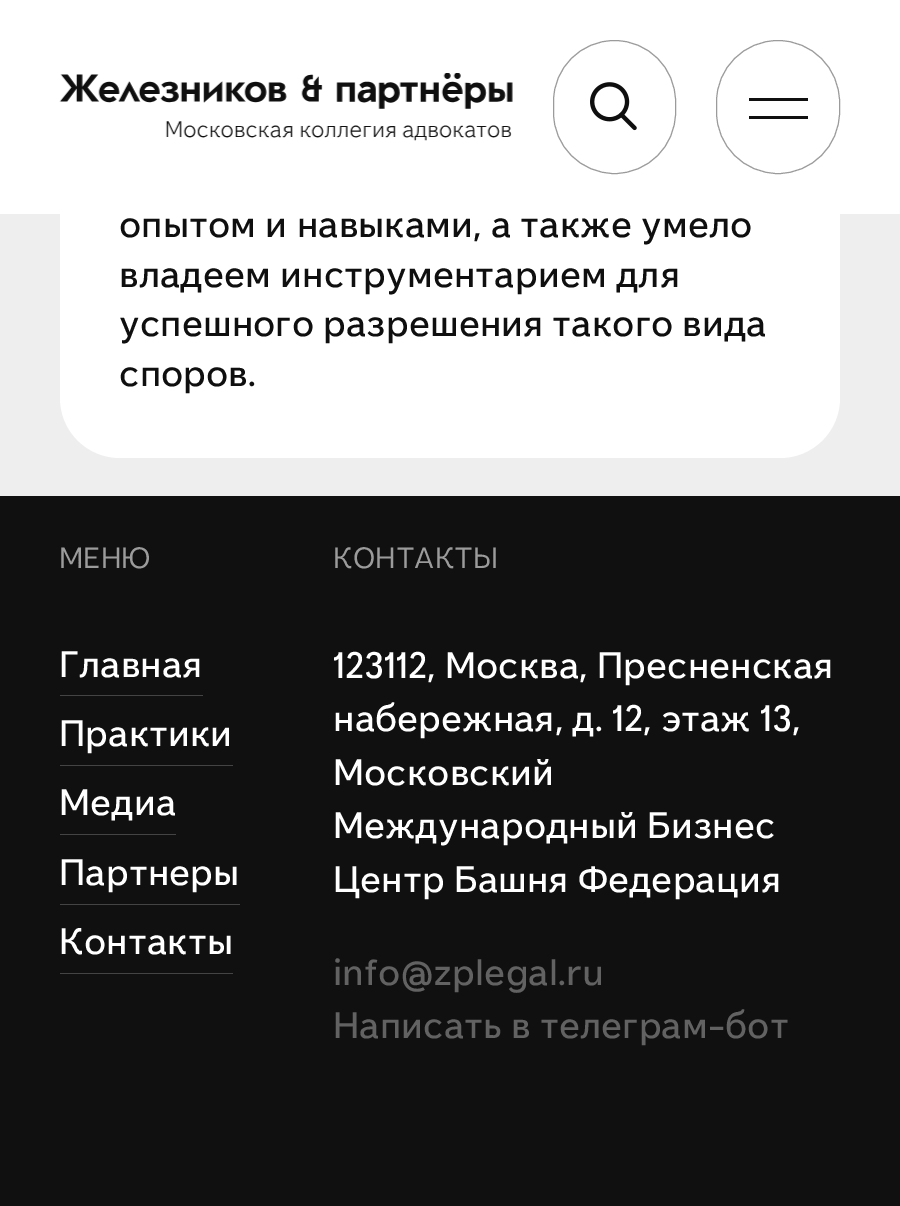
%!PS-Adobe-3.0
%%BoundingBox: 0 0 900 1206
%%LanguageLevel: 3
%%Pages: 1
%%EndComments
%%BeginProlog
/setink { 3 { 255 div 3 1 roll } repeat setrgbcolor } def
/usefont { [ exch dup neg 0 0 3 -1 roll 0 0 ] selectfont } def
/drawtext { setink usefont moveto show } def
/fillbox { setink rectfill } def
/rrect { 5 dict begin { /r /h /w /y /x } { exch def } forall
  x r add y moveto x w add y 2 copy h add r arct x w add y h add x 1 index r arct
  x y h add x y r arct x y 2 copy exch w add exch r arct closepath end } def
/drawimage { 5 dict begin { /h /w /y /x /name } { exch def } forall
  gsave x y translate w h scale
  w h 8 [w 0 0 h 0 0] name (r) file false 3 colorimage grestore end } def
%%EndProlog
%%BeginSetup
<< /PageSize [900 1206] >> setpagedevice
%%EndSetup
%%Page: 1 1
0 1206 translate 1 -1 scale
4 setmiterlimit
0 0 900 1206 238 238 238 fillbox
255 255 255 setink
60 -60 780 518 60 rrect fill
0 0 900 214 255 255 255 fillbox
(assets/img1.rgb) 59 73 454 68 drawimage
155 155 155 setink
553.5 40.5 122 133 61 rrect stroke
(assets/img2.rgb) 590 82 47 49 drawimage
716.5 40.5 123 133 61.5 rrect stroke
749 98 59 3 16 16 16 fillbox
749 116 59 3 16 16 16 fillbox
(опытом и навыками, а также умело) 119 237 /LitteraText-Regular 39.6 15 15 15 drawtext
(владеем инструментарием для) 119 287 /LitteraText-Regular 39.6 15 15 15 drawtext
(успешного разрешения такого вида) 119 336 /LitteraText-Regular 39.6 15 15 15 drawtext
(споров.) 119 386 /LitteraText-Regular 39.6 15 15 15 drawtext
0 496 900 710 16 16 16 fillbox
(МЕНЮ) 59 568 /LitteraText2-Regular 31.5 155 155 155 drawtext
(Главная) 59 677 /LitteraText-Regular 39.6 255 255 255 drawtext
60 695 143 1 68 68 68 fillbox
(Практики) 59 746 /LitteraText-Regular 39.6 255 255 255 drawtext
60 765 173 1 68 68 68 fillbox
(Медиа) 59 815 /LitteraText-Regular 39.6 255 255 255 drawtext
60 834 116 1 68 68 68 fillbox
(Партнеры) 59 885 /LitteraText-Regular 39.6 255 255 255 drawtext
60 904 180 1 68 68 68 fillbox
(Контакты) 59 954 /LitteraText-Regular 39.6 255 255 255 drawtext
60 973 173 1 68 68 68 fillbox
(КОНТАКТЫ) 333 568 /LitteraText2-Regular 31.5 155 155 155 drawtext
(123112, Моcква, Пресненская) 333 678 /LitteraText-Regular 39.6 255 255 255 drawtext
(набережная, д. 12, этаж 13,) 333 731 /LitteraText-Regular 39.6 255 255 255 drawtext
(Московский) 333 785 /LitteraText-Regular 39.6 255 255 255 drawtext
(Международный Бизнес) 333 838 /LitteraText-Regular 39.6 255 255 255 drawtext
(Центр Башня Федерация) 333 892 /LitteraText-Regular 39.6 255 255 255 drawtext
(info@zplegal.ru) 333 985 /LitteraText-Regular 39.6 98 98 98 drawtext
(Написать в телеграм-бот) 333 1038 /LitteraText-Regular 39.6 98 98 98 drawtext
showpage
%%EOF
